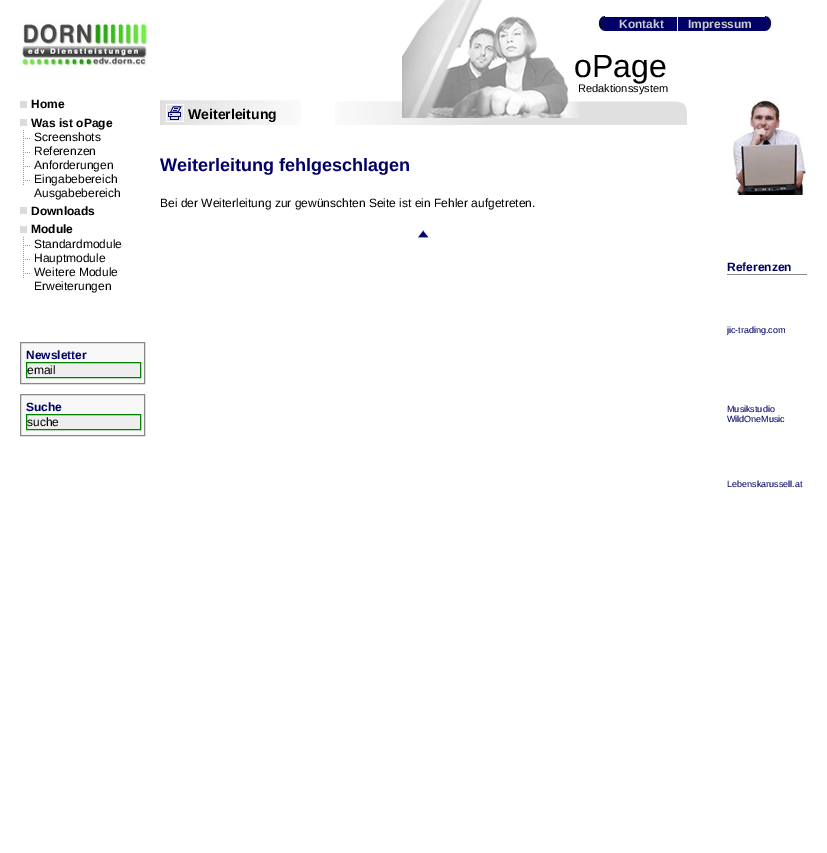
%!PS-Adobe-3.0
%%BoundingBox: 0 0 827 853
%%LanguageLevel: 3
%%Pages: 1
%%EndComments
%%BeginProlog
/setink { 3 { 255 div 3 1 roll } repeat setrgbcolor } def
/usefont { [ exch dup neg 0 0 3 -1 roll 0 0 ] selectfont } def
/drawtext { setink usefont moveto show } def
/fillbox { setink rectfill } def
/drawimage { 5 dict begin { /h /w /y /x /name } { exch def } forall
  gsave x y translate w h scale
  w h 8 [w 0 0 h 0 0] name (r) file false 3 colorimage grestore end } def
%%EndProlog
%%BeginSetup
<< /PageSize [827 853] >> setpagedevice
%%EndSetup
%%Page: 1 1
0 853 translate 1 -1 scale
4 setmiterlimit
0 0 827 853 255 255 255 fillbox
(assets/img5.rgb) 335 0 352 125 drawimage
(assets/img1.rgb) 598 16 7 15 drawimage
605 17 72 14 0 0 102 fillbox
(Kontakt) 619 28 /LiberationSans-Bold 12 204 204 204 drawtext
678 17 87 14 0 0 102 fillbox
(Impressum) 688 28 /LiberationSans-Bold 12 204 204 204 drawtext
(assets/img2.rgb) 765 16 7 15 drawimage
(assets/img3.rgb) 20 20 128 48 drawimage
20 101 7 7 219 219 219 fillbox
(Home) 31 108 /LiberationSans-Bold 12 0 0 0 drawtext
20 119 7 7 219 219 219 fillbox
(Was ist oPage) 31 127 /LiberationSans-Bold 12 0 0 0 drawtext
(assets/img4.rgb) 23 130 7 13 drawimage
(Screenshots) 34 141 /LiberationSans-Regular 12 0 0 0 drawtext
(assets/img4.rgb) 23 144 7 13 drawimage
(Referenzen) 34 155 /LiberationSans-Regular 12 0 0 0 drawtext
(assets/img4.rgb) 23 158 7 13 drawimage
(Anforderungen) 34 169 /LiberationSans-Regular 12 0 0 0 drawtext
(assets/img4.rgb) 23 172 7 13 drawimage
(Eingabebereich) 34 183 /LiberationSans-Regular 12 0 0 0 drawtext
(Ausgabebereich) 34 197 /LiberationSans-Regular 12 0 0 0 drawtext
20 207 7 7 219 219 219 fillbox
(Downloads) 31 215 /LiberationSans-Bold 12 0 0 0 drawtext
20 226 7 7 219 219 219 fillbox
(Module) 31 233 /LiberationSans-Bold 12 0 0 0 drawtext
(assets/img4.rgb) 23 237 7 13 drawimage
(Standardmodule) 34 248 /LiberationSans-Regular 12 0 0 0 drawtext
(assets/img4.rgb) 23 251 7 13 drawimage
(Hauptmodule) 34 262 /LiberationSans-Regular 12 0 0 0 drawtext
(assets/img4.rgb) 23 265 7 13 drawimage
(Weitere Module) 34 276 /LiberationSans-Regular 12 0 0 0 drawtext
(Erweiterungen) 34 290 /LiberationSans-Regular 12 0 0 0 drawtext
248 248 248 setink
20.5 342.5 moveto 144.5 342.5 lineto 144.5 383.5 lineto 20.5 383.5 lineto closepath gsave fill grestore
136 136 136 setink
stroke
(Newsletter) 26 359 /LiberationSans-Bold 12 0 0 102 drawtext
238 238 238 setink
26.5 362.5 moveto 140.5 362.5 lineto 140.5 377.5 lineto 26.5 377.5 lineto closepath gsave fill grestore
0 128 0 setink
stroke
(email) 27 374 /LiberationSans-Regular 12 0 0 0 drawtext
248 248 248 setink
20.5 394.5 moveto 144.5 394.5 lineto 144.5 435.5 lineto 20.5 435.5 lineto closepath gsave fill grestore
136 136 136 setink
stroke
(Suche) 26 411 /LiberationSans-Bold 12 0 0 102 drawtext
238 238 238 setink
26.5 414.5 moveto 140.5 414.5 lineto 140.5 429.5 lineto 26.5 429.5 lineto closepath gsave fill grestore
0 128 0 setink
stroke
(suche) 27 426 /LiberationSans-Regular 12 0 0 0 drawtext
(oPage) 574 77 /LiberationSans-Regular 32 0 0 0 drawtext
(Redaktionssystem) 578 92 /LiberationSans-Regular 11 0 0 0 drawtext
(assets/img6.rgb) 160 100 141 25 drawimage
(assets/img7.rgb) 166 104 18 18 drawimage
(Weiterleitung) 188 119 /LiberationSans-Bold 14 0 0 0 drawtext
(Weiterleitung fehlgeschlagen) 160 171 /LiberationSans-Bold 18 0 0 102 drawtext
(Bei der Weiterleitung zur gewünschten Seite ist ein Fehler aufgetreten.) 160 207 /LiberationSans-Regular 12 0 0 0 drawtext
(assets/img8.rgb) 418 230 11 8 drawimage
(assets/img9.rgb) 732 100 75 95 drawimage
727 274 80 1 136 136 136 fillbox
(Referenzen) 727 271 /LiberationSans-Bold 12 0 0 102 drawtext
(jic-trading.com) 727 333 /LiberationSans-Regular 9 0 0 102 drawtext
(Musikstudio) 727 412 /LiberationSans-Regular 9 0 0 102 drawtext
(WildOneMusic) 727 422 /LiberationSans-Regular 9 0 0 102 drawtext
(Lebenskarussell.at) 727 487 /LiberationSans-Regular 9 0 0 102 drawtext
showpage
%%EOF
